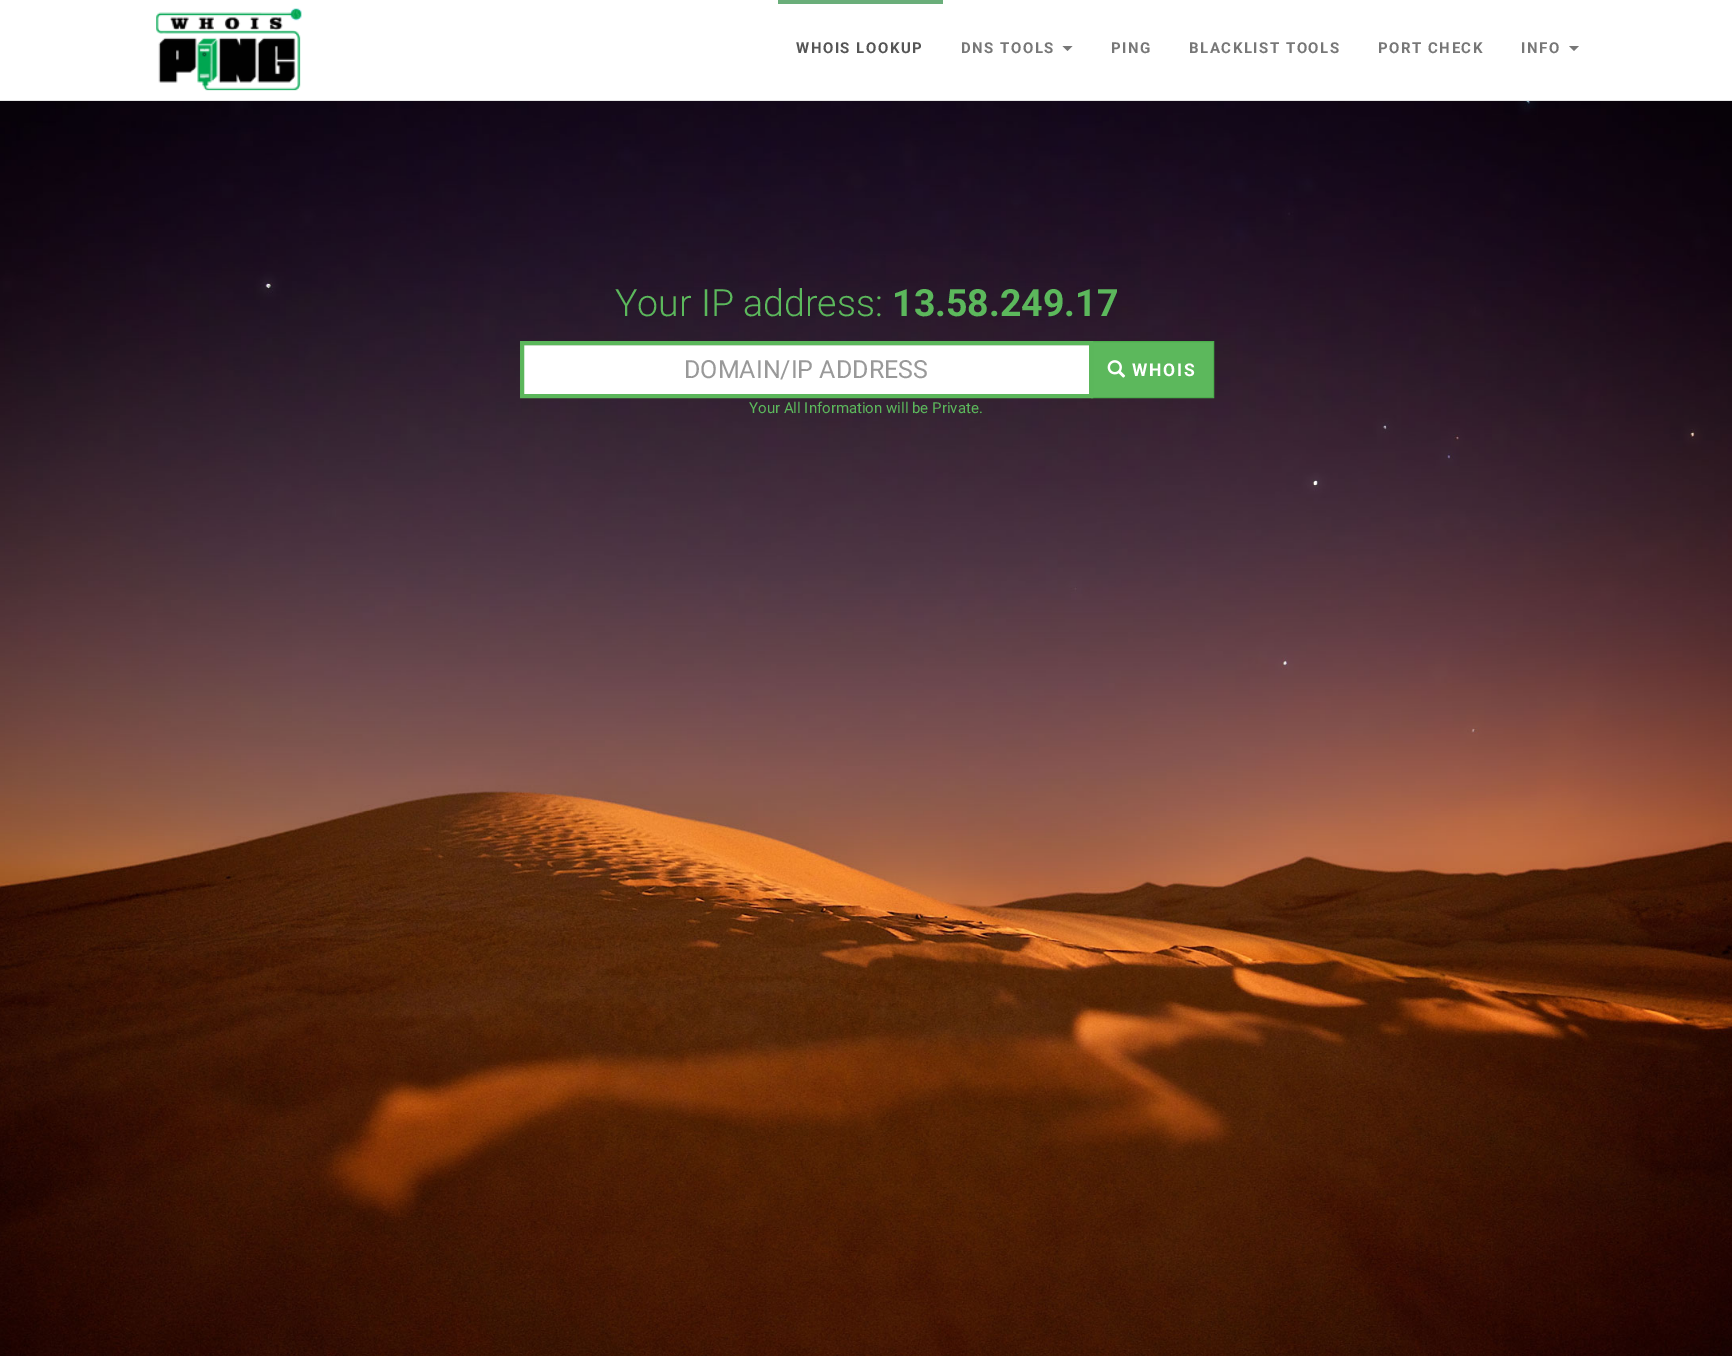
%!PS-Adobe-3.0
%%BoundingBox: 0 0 1732 1356
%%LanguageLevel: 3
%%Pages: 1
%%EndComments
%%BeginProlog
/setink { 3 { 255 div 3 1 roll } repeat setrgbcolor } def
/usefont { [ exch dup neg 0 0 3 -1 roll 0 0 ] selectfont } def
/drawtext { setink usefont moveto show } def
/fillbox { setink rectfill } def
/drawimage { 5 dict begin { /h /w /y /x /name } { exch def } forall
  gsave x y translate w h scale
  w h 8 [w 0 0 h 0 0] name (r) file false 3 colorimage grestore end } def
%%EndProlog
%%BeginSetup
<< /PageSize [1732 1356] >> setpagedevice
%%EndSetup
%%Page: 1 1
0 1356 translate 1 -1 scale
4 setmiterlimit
0 0 1732 1356 255 255 255 fillbox
0 100 1732 1 230 230 230 fillbox
(assets/img1.rgb) 156 8 146 83 drawimage
778 0 165 4 106 174 122 fillbox
/Roboto-Bold 15 usefont
85 85 85 setink
796 53 moveto 1.5 0 (WHOIS LOOKUP) ashow
119 119 119 setink
961 53 moveto 1.5 0 (DNS TOOLS) ashow
1062.5 46 moveto 1072.5 46 lineto 1067.5 51 lineto closepath fill
1111 53 moveto 1.5 0 (PING) ashow
1189 53 moveto 1.5 0 (BLACKLIST TOOLS) ashow
1378 53 moveto 1.5 0 (PORT CHECK) ashow
1521 53 moveto 1.5 0 (INFO) ashow
1569 46 moveto 1579 46 lineto 1574 51 lineto closepath fill
(assets/img2.rgb) 0 101 1732 1255 drawimage
(Your IP address:) 615 316 /Roboto-Light 37.5 92 184 92 drawtext
(13.58.249.17) 892 316 /Roboto-Bold 37.5 92 184 92 drawtext
524 346 565 48 255 255 255 fillbox
524 345 565 1 236 236 236 fillbox
1093 342 120 55 92 184 92 fillbox
76 174 76 setink
1091.5 341.5 122 56 rectstroke
91 183 91 setink
4 setlinewidth
522 343 569 53 rectstroke
(DOMAIN/IP ADDRESS) 684 378 /Roboto-Regular 25 153 153 153 drawtext
(assets/img3.rgb) 1107 360 19 18 drawimage
/Roboto-Bold 17.5 usefont
255 255 255 setink
1132 376 moveto 1.75 0 (WHOIS) ashow
(Your All Information will be Private.) 749 413 /Roboto-Regular 15 92 184 92 drawtext
showpage
%%EOF
